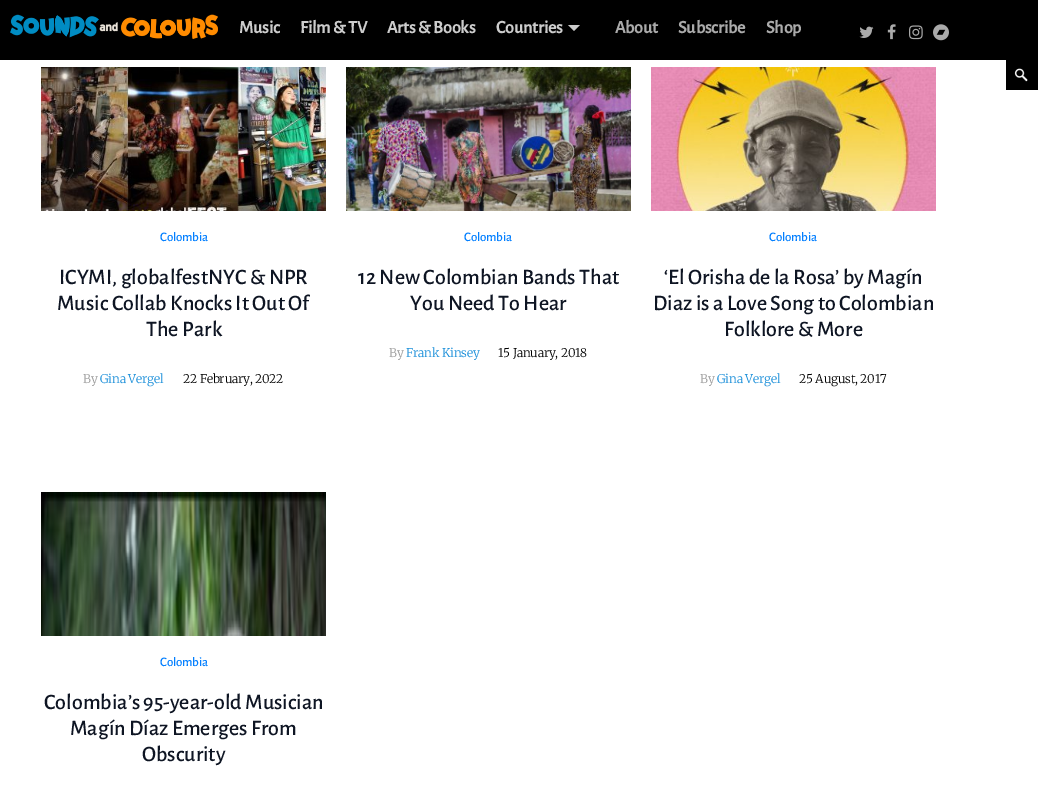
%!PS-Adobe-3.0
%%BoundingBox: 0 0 1038 799
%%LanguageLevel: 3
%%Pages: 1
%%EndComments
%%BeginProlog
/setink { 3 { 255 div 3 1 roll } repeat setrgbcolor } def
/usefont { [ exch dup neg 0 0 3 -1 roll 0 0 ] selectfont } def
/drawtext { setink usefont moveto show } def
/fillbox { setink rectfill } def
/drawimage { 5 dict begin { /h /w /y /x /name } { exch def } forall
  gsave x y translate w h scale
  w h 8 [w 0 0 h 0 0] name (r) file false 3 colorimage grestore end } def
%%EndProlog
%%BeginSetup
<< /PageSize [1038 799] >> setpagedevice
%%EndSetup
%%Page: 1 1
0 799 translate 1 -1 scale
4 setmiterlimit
0 0 1038 799 255 255 255 fillbox
0 0 1038 60 0 0 0 fillbox
(assets/img1.rgb) 10 14 208 25 drawimage
/AlegreyaSans-Bold 18 usefont
204 204 204 setink
239 33 moveto -0.2 0 (Music) ashow
300 33 moveto -0.2 0 (Film & TV) ashow
387 33 moveto -0.2 0 (Arts & Books) ashow
496 33 moveto -0.2 0 (Countries) ashow
568 25 moveto 580 25 lineto 574 31 lineto closepath fill
170 170 170 setink
615 33 moveto -0.2 0 (About) ashow
678 33 moveto -0.2 0 (Subscribe) ashow
766 33 moveto -0.2 0 (Shop) ashow
(assets/img2.rgb) 859 26 15 12 drawimage
(assets/img3.rgb) 887 24 9 16 drawimage
(assets/img4.rgb) 909 25 14 15 drawimage
(assets/img5.rgb) 933 24 16 17 drawimage
1006 60 32 30 0 0 0 fillbox
(assets/img6.rgb) 1014 68 14 14 drawimage
(assets/img7.rgb) 41 67 285 144 drawimage
/AlegreyaSans-Medium 13 usefont
3 127 255 setink
160 241 moveto -0.2 0 (Colombia) ashow
(ICYMI, globalfestNYC & NPR) 59 284 /AlegreyaSans-Medium 22 14 21 35 drawtext
(Music Collab Knocks It Out Of) 57 310 /AlegreyaSans-Medium 22 14 21 35 drawtext
(The Park) 146 336 /AlegreyaSans-Medium 22 14 21 35 drawtext
/Merriweather-Light 12 usefont
152 152 152 setink
83 383 moveto -0.2 0 (By) ashow
22 141 217 setink
100 383 moveto -0.2 0 (Gina Vergel) ashow
0 0 0 setink
183 383 moveto -0.2 0 (22 February, 2022) ashow
(assets/img8.rgb) 346 67 285 144 drawimage
/AlegreyaSans-Medium 13 usefont
3 127 255 setink
464 241 moveto -0.2 0 (Colombia) ashow
(12 New Colombian Bands That) 358 284 /AlegreyaSans-Medium 22 14 21 35 drawtext
(You Need To Hear) 410 310 /AlegreyaSans-Medium 22 14 21 35 drawtext
/Merriweather-Light 12 usefont
152 152 152 setink
389 357 moveto -0.2 0 (By) ashow
22 141 217 setink
406 357 moveto -0.2 0 (Frank Kinsey) ashow
0 0 0 setink
498 357 moveto -0.2 0 (15 January, 2018) ashow
(assets/img9.rgb) 651 67 285 144 drawimage
/AlegreyaSans-Medium 13 usefont
3 127 255 setink
769 241 moveto -0.2 0 (Colombia) ashow
(‘El Orisha de la Rosa’ by Magín) 664 284 /AlegreyaSans-Medium 22 14 21 35 drawtext
(Diaz is a Love Song to Colombian) 653 310 /AlegreyaSans-Medium 22 14 21 35 drawtext
(Folklore & More) 724 336 /AlegreyaSans-Medium 22 14 21 35 drawtext
/Merriweather-Light 12 usefont
152 152 152 setink
700 383 moveto -0.2 0 (By) ashow
22 141 217 setink
717 383 moveto -0.2 0 (Gina Vergel) ashow
0 0 0 setink
799 383 moveto -0.2 0 (25 August, 2017) ashow
(assets/img10.rgb) 41 492 285 144 drawimage
/AlegreyaSans-Medium 13 usefont
3 127 255 setink
160 666 moveto -0.2 0 (Colombia) ashow
(Colombia’s 95-year-old Musician) 44 709 /AlegreyaSans-Medium 22 14 21 35 drawtext
(Magín Díaz Emerges From) 70 735 /AlegreyaSans-Medium 22 14 21 35 drawtext
(Obscurity) 142 761 /AlegreyaSans-Medium 22 14 21 35 drawtext
showpage
%%EOF
